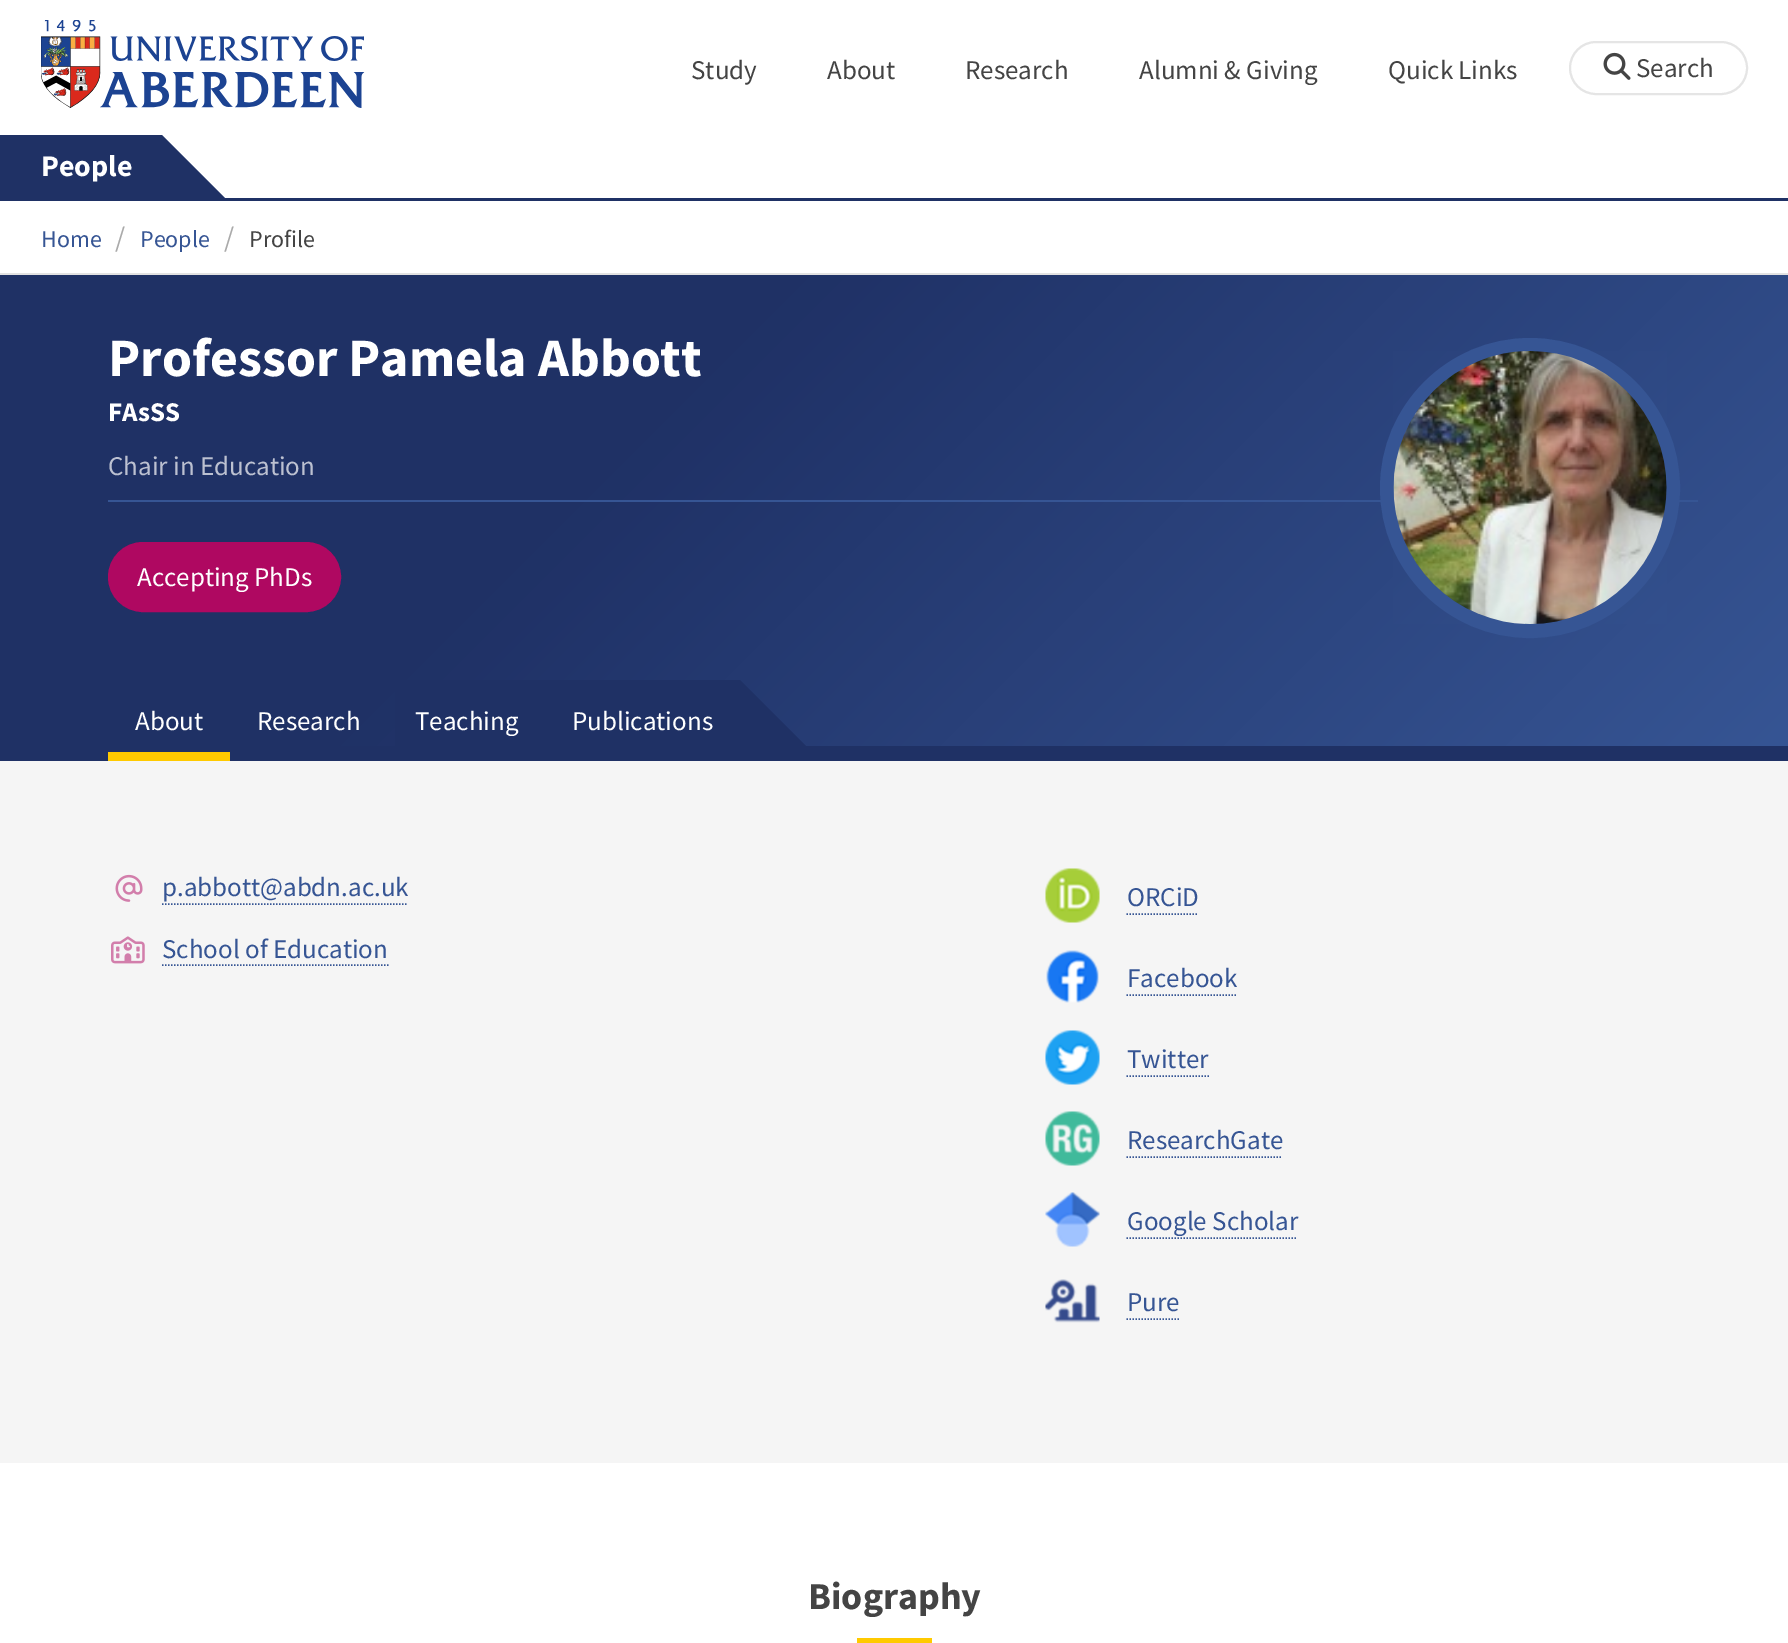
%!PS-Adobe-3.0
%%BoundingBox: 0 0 1788 1643
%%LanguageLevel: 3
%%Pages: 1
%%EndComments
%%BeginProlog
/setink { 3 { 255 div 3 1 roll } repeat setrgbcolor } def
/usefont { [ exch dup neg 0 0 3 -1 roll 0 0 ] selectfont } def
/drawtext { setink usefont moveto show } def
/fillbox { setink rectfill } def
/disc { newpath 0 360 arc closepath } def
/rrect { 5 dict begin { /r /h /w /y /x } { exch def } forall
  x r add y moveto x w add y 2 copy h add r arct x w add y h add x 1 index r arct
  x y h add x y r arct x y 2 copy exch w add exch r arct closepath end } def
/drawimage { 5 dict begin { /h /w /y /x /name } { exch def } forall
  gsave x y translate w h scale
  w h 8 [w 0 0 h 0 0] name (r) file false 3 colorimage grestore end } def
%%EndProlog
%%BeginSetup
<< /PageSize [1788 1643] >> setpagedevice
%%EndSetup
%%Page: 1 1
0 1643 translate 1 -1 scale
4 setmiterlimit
0 0 1788 1643 255 255 255 fillbox
(assets/img1.rgb) 41 20 324 88 drawimage
(Study) 691 79 /SourceSansPro-Regular 27 68 68 68 drawtext
(About) 827 79 /SourceSansPro-Regular 27 68 68 68 drawtext
(Research) 965 79 /SourceSansPro-Regular 27 68 68 68 drawtext
(Alumni & Giving) 1139 79 /SourceSansPro-Regular 27 68 68 68 drawtext
(Quick Links) 1388 79 /SourceSansPro-Regular 27 68 68 68 drawtext
229 229 229 setink
2 setlinewidth
1570 42 177 52 26 rrect stroke
(assets/img2.rgb) 1603 52 28 28 drawimage
(Search) 1636 77 /SourceSansPro-Regular 27 68 68 68 drawtext
gsave
0 135 1788 63 rectclip
31 49 101 setink
339 312 moveto -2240 312 lineto -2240 135 lineto 162 135 lineto closepath fill
grestore
(People) 41 176 /SourceSansPro-Bold 30 255 255 255 drawtext
0 198 1788 3 31 49 101 fillbox
0 273 1788 2 226 226 226 fillbox
(Home) 41 247 /SourceSansPro-Regular 24 54 85 148 drawtext
(/) 115 247 /SourceSansPro-Regular 29 170 170 170 drawtext
(People) 140 247 /SourceSansPro-Regular 24 54 85 148 drawtext
(/) 224 247 /SourceSansPro-Regular 29 170 170 170 drawtext
(Profile) 249 247 /SourceSansPro-Regular 24 68 68 68 drawtext
gsave 0 275 moveto 1788 275 lineto 1788 746 lineto 0 746 lineto closepath clip newpath
<< /ShadingType 2 /ColorSpace /DeviceRGB /Coords [328 -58 1460 1074] /Extend [true true] /Function << /FunctionType 3 /Domain [0 1] /Functions [<< /FunctionType 2 /Domain [0 1] /C0 [0.122 0.192 0.396] /C1 [0.122 0.192 0.396] /N 1 >> << /FunctionType 2 /Domain [0 1] /C0 [0.122 0.192 0.396] /C1 [0.212 0.333 0.58] /N 1 >>] /Bounds [0.35] /Encode [0 1 0 1] >> >> shfill grestore
0 746 1788 15 31 49 101 fillbox
(Professor Pamela Abbott) 108 376 /SourceSansPro-Bold 54 255 255 255 drawtext
(FAsSS) 108 421 /SourceSansPro-Bold 27 255 255 255 drawtext
(Chair in Education) 108 475 /SourceSansPro-Regular 27 188 193 209 drawtext
108 500 1590 2 54 85 148 fillbox
175 8 97 setink
109 543 231 68 34 rrect gsave fill grestore
stroke
(Accepting PhDs) 137 586 /SourceSansPro-Regular 27 255 255 255 drawtext
54 85 148 setink
14 setlinewidth
1530 488 143 disc stroke
(assets/img3.rgb) 1393 351 274 273 drawimage
108 752 122 9 255 202 0 fillbox
(About) 135 730 /SourceSansPro-Regular 27 255 255 255 drawtext
(Research) 257 730 /SourceSansPro-Regular 27 255 255 255 drawtext
395 680 345 66 31 49 101 fillbox
(Teaching) 415 730 /SourceSansPro-Regular 27 255 255 255 drawtext
(Publications) 572 730 /SourceSansPro-Regular 27 255 255 255 drawtext
31 49 101 setink
902 842 moveto 740 842 lineto 740 680 lineto closepath fill
0 761 1788 702 245 245 245 fillbox
(assets/img4.rgb) 115 874 28 28 drawimage
(p.abbott@abdn.ac.uk) 162 896 /SourceSansPro-Regular 27 54 85 148 drawtext
1.5 setlinewidth
[1.5 1.5] 0 setdash
162 904 moveto 408 904 lineto stroke
(assets/img5.rgb) 111 936 34 28 drawimage
(School of Education) 162 958 /SourceSansPro-Regular 27 54 85 148 drawtext
162 965 moveto 388.5 965 lineto stroke
(assets/img6.rgb) 1045 868 55 55 drawimage
(ORCiD) 1127 906 /SourceSansPro-Regular 27 54 85 148 drawtext
1126.5 914 moveto 1198.5 914 lineto stroke
(assets/img7.rgb) 1046 950 53 53 drawimage
(Facebook) 1127 987 /SourceSansPro-Regular 27 54 85 148 drawtext
1126.5 995 moveto 1237.5 995 lineto stroke
(assets/img8.rgb) 1045 1030 55 55 drawimage
(Twitter) 1127 1068 /SourceSansPro-Regular 27 54 85 148 drawtext
1126.5 1076 moveto 1209 1076 lineto stroke
(assets/img9.rgb) 1045 1111 55 55 drawimage
(ResearchGate) 1127 1149 /SourceSansPro-Regular 27 54 85 148 drawtext
1126.5 1157 moveto 1282.5 1157 lineto stroke
(assets/img10.rgb) 1045 1192 55 55 drawimage
(Google Scholar) 1127 1230 /SourceSansPro-Regular 27 54 85 148 drawtext
1126.5 1238 moveto 1297.5 1238 lineto stroke
(assets/img11.rgb) 1045 1279 55 44 drawimage
(Pure) 1127 1311 /SourceSansPro-Regular 27 54 85 148 drawtext
1126.5 1319 moveto 1179 1319 lineto stroke
(Biography) 808 1609 /SourceSansPro-Bold 38 68 68 68 drawtext
857 1638 75 5 255 202 0 fillbox
showpage
%%EOF
